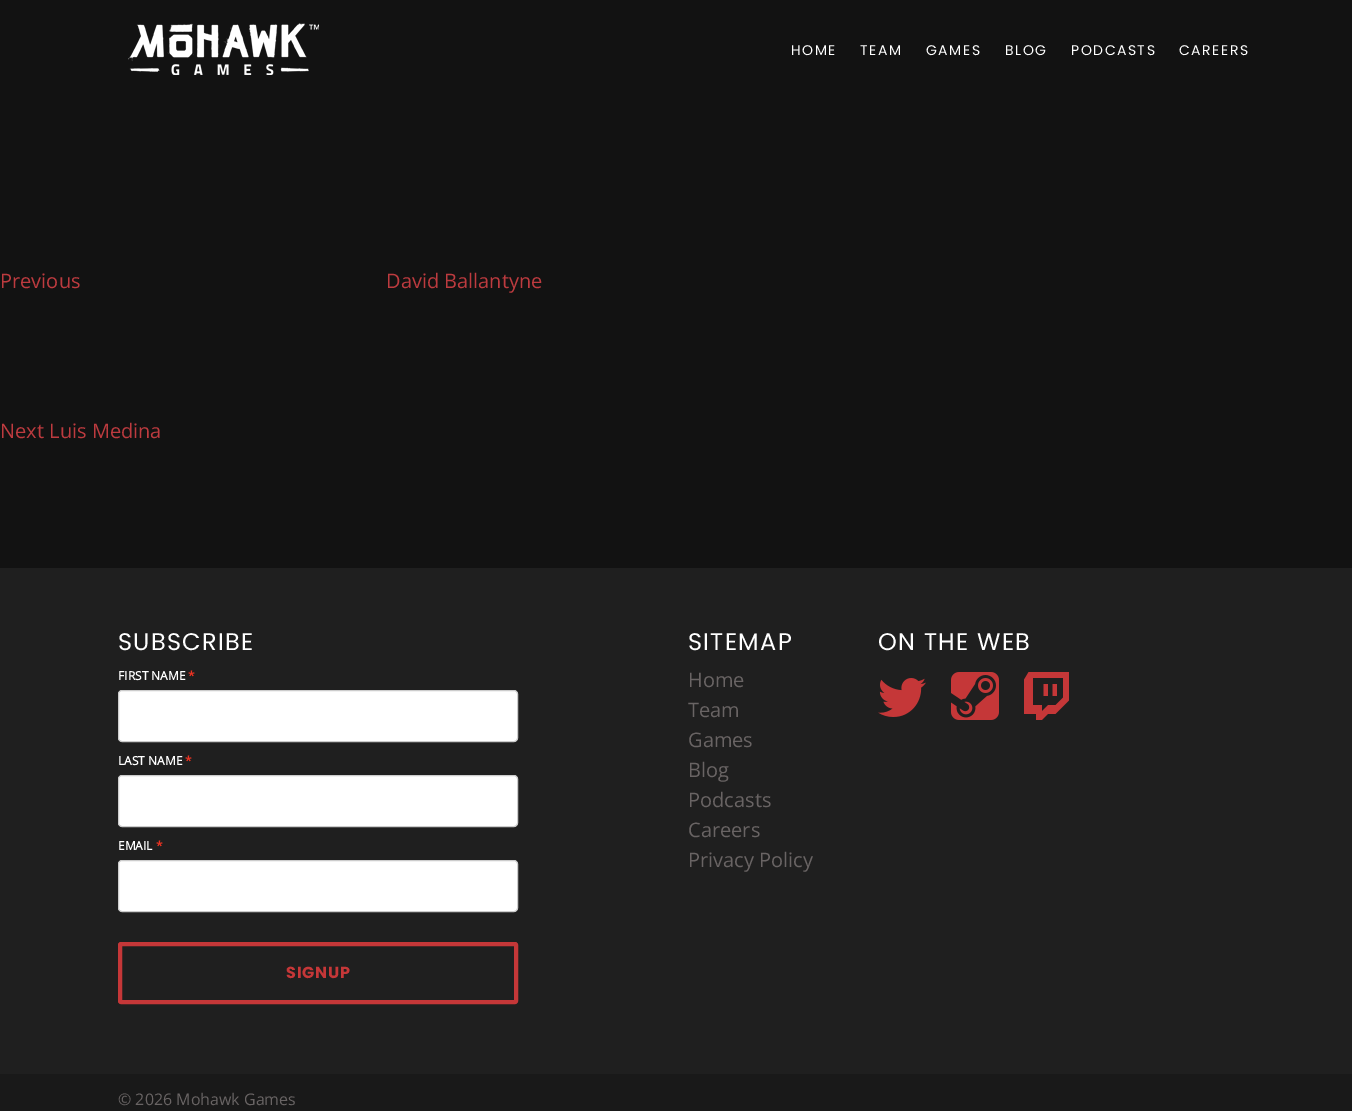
%!PS-Adobe-3.0
%%BoundingBox: 0 0 1352 1111
%%LanguageLevel: 3
%%Pages: 1
%%EndComments
%%BeginProlog
/setink { 3 { 255 div 3 1 roll } repeat setrgbcolor } def
/usefont { [ exch dup neg 0 0 3 -1 roll 0 0 ] selectfont } def
/drawtext { setink usefont moveto show } def
/fillbox { setink rectfill } def
/rrect { 5 dict begin { /r /h /w /y /x } { exch def } forall
  x r add y moveto x w add y 2 copy h add r arct x w add y h add x 1 index r arct
  x y h add x y r arct x y 2 copy exch w add exch r arct closepath end } def
/drawimage { 5 dict begin { /h /w /y /x /name } { exch def } forall
  gsave x y translate w h scale
  w h 8 [w 0 0 h 0 0] name (r) file false 3 colorimage grestore end } def
%%EndProlog
%%BeginSetup
<< /PageSize [1352 1111] >> setpagedevice
%%EndSetup
%%Page: 1 1
0 1111 translate 1 -1 scale
4 setmiterlimit
0 0 1352 1111 18 18 18 fillbox
(assets/img1.rgb) 128 23 191 52 drawimage
/Poppins-Regular 14 usefont
255 255 255 setink
791 55 moveto 1.5 0 (HOME) ashow
860 55 moveto 1.5 0 (TEAM) ashow
926 55 moveto 1.5 0 (GAMES) ashow
1005 55 moveto 1.5 0 (BLOG) ashow
1071 55 moveto 1.5 0 (PODCASTS) ashow
1179 55 moveto 1.5 0 (CAREERS) ashow
(Previous) 0 288 /OpenSans-Regular 20 189 59 63 drawtext
(David Ballantyne) 386 288 /OpenSans-Regular 20 189 59 63 drawtext
(Next Luis Medina) 0 438 /OpenSans-Regular 20 189 59 63 drawtext
0 568 1352 506 31 31 31 fillbox
/Poppins-Regular 24 usefont
255 255 255 setink
118 650 moveto 1.25 0 (SUBSCRIBE) ashow
(FIRST NAME) 118 680 /OpenSans-Bold 12 255 255 255 drawtext
(*) 188 680 /OpenSans-Bold 12 238 51 34 drawtext
255 255 255 setink
118.5 690.5 399 51 3.5 rrect gsave fill grestore
204 204 204 setink
stroke
(LAST NAME) 118 765 /OpenSans-Bold 12 255 255 255 drawtext
(*) 185 765 /OpenSans-Bold 12 238 51 34 drawtext
255 255 255 setink
118.5 775.5 399 51 3.5 rrect gsave fill grestore
204 204 204 setink
stroke
(EMAIL) 118 850 /OpenSans-Bold 12 255 255 255 drawtext
(*) 156 850 /OpenSans-Bold 12 238 51 34 drawtext
255 255 255 setink
118.5 860.5 399 51 3.5 rrect gsave fill grestore
204 204 204 setink
stroke
197 55 56 setink
4 setlinewidth
120 944 396 58 1 rrect stroke
/Poppins-Bold 16 usefont
286 978 moveto 0.75 0 (SIGNUP) ashow
/Poppins-Regular 24 usefont
255 255 255 setink
688 650 moveto 1.25 0 (SITEMAP) ashow
(Home) 688 687 /OpenSans-Regular 20 105 100 100 drawtext
(Team) 688 717 /OpenSans-Regular 20 105 100 100 drawtext
(Games) 688 747 /OpenSans-Regular 20 105 100 100 drawtext
(Blog) 688 777 /OpenSans-Regular 20 105 100 100 drawtext
(Podcasts) 688 807 /OpenSans-Regular 20 105 100 100 drawtext
(Careers) 688 837 /OpenSans-Regular 20 105 100 100 drawtext
(Privacy Policy) 688 867 /OpenSans-Regular 20 105 100 100 drawtext
/Poppins-Regular 24 usefont
255 255 255 setink
878 650 moveto 1.25 0 (ON THE WEB) ashow
(assets/img2.rgb) 878 678 48 39 drawimage
(assets/img3.rgb) 951 672 48 48 drawimage
(assets/img4.rgb) 1024 672 45 48 drawimage
0 1074 1352 37 25 25 25 fillbox
(© 2026 Mohawk Games) 118 1105 /OpenSans-Regular 16 105 100 100 drawtext
showpage
%%EOF
